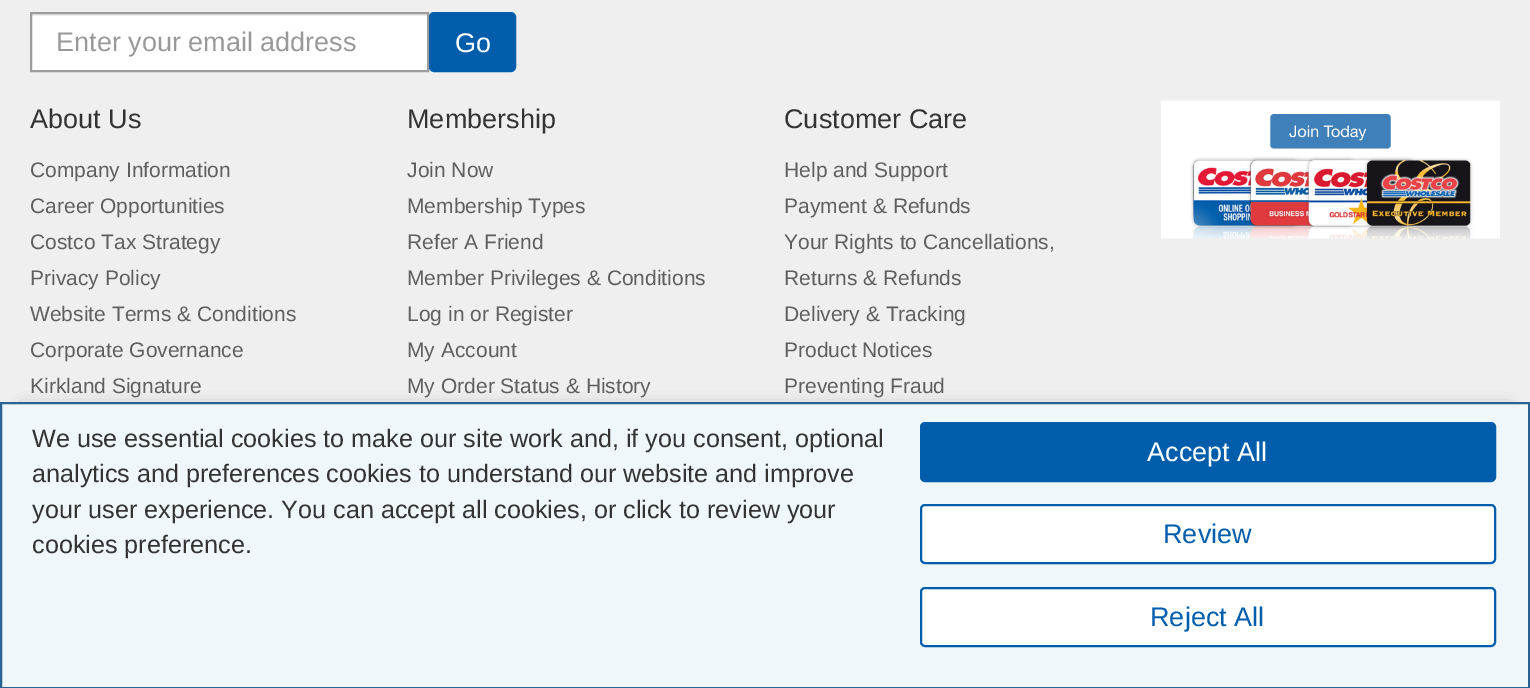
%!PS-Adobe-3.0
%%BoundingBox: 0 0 1530 688
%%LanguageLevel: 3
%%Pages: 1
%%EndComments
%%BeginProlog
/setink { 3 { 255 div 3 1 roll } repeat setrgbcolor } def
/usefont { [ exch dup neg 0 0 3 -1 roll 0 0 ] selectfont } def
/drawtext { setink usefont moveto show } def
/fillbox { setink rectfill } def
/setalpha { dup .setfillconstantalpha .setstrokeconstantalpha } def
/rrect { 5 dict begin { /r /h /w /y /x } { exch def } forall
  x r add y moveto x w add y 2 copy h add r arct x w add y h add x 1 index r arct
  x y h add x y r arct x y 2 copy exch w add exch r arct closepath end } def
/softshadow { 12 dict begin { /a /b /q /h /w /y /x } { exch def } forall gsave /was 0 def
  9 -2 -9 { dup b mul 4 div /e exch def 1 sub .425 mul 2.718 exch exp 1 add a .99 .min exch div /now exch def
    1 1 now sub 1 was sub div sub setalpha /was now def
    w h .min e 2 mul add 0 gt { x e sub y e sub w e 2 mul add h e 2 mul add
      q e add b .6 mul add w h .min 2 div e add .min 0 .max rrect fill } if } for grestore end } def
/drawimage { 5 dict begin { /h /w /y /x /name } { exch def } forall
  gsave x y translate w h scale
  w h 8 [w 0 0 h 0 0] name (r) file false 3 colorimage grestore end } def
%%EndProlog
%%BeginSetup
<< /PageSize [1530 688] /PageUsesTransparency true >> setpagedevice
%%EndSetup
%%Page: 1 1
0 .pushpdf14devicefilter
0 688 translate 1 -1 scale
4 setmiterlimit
0 0 1530 688 239 239 239 fillbox
32 16 395 54 255 255 255 fillbox
32 14 396 2 236 236 236 fillbox
156 156 156 setink
2 setlinewidth
31 13 397 58 rectstroke
(Enter your email address) 56 51 /LiberationSans-Regular 27 153 153 153 drawtext
0 93 171 setink
430 13 85 58 4 rrect gsave fill grestore
stroke
(Go) 455 52 /LiberationSans-Regular 27 255 255 255 drawtext
(About Us) 30 128 /LiberationSans-Regular 27 51 51 51 drawtext
(Company Information) 30 177 /LiberationSans-Regular 21 95 95 95 drawtext
(Career Opportunities) 30 213 /LiberationSans-Regular 21 95 95 95 drawtext
(Costco Tax Strategy) 30 249 /LiberationSans-Regular 21 95 95 95 drawtext
(Privacy Policy) 30 285 /LiberationSans-Regular 21 95 95 95 drawtext
(Website Terms & Conditions) 30 321 /LiberationSans-Regular 21 95 95 95 drawtext
(Corporate Governance) 30 357 /LiberationSans-Regular 21 95 95 95 drawtext
(Kirkland Signature) 30 393 /LiberationSans-Regular 21 95 95 95 drawtext
(Membership) 407 128 /LiberationSans-Regular 27 51 51 51 drawtext
(Join Now) 407 177 /LiberationSans-Regular 21 95 95 95 drawtext
(Membership Types) 407 213 /LiberationSans-Regular 21 95 95 95 drawtext
(Refer A Friend) 407 249 /LiberationSans-Regular 21 95 95 95 drawtext
(Member Privileges & Conditions) 407 285 /LiberationSans-Regular 21 95 95 95 drawtext
(Log in or Register) 407 321 /LiberationSans-Regular 21 95 95 95 drawtext
(My Account) 407 357 /LiberationSans-Regular 21 95 95 95 drawtext
(My Order Status & History) 407 393 /LiberationSans-Regular 21 95 95 95 drawtext
(Customer Care) 784 128 /LiberationSans-Regular 27 51 51 51 drawtext
(Help and Support) 784 177 /LiberationSans-Regular 21 95 95 95 drawtext
(Payment & Refunds) 784 213 /LiberationSans-Regular 21 95 95 95 drawtext
(Your Rights to Cancellations,) 784 249 /LiberationSans-Regular 21 95 95 95 drawtext
(Returns & Refunds) 784 285 /LiberationSans-Regular 21 95 95 95 drawtext
(Delivery & Tracking) 784 321 /LiberationSans-Regular 21 95 95 95 drawtext
(Product Notices) 784 357 /LiberationSans-Regular 21 95 95 95 drawtext
(Preventing Fraud) 784 393 /LiberationSans-Regular 21 95 95 95 drawtext
(assets/img1.rgb) 1161 100 339 139 drawimage
156 156 156 setink
21 408 1488 245 0 7.5 1 softshadow
239 247 251 setink
1 403 moveto 1529 403 lineto 1529 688 lineto 1 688 lineto closepath gsave fill grestore
42 98 147 setink
stroke
(We use essential cookies to make our site work and, if you consent, optional) 32 447 /LiberationSans-Regular 25.2 51 51 51 drawtext
(analytics and preferences cookies to understand our website and improve) 32 482 /LiberationSans-Regular 25.2 51 51 51 drawtext
(your user experience. You can accept all cookies, or click to review your) 32 518 /LiberationSans-Regular 25.2 51 51 51 drawtext
(cookies preference.) 32 553 /LiberationSans-Regular 25.2 51 51 51 drawtext
0 93 171 setink
921 423 574 58 4 rrect gsave fill grestore
stroke
(Accept All) 1147 461 /LiberationSans-Regular 27 255 255 255 drawtext
921 505 574 58 4 rrect gsave fill grestore
0 93 171 setink
stroke
(Review) 1163 543 /LiberationSans-Regular 27 0 93 171 drawtext
255 255 255 setink
921 588 574 58 4 rrect gsave fill grestore
0 93 171 setink
stroke
(Reject All) 1150 626 /LiberationSans-Regular 27 0 93 171 drawtext
.poppdf14devicefilter showpage
%%EOF
